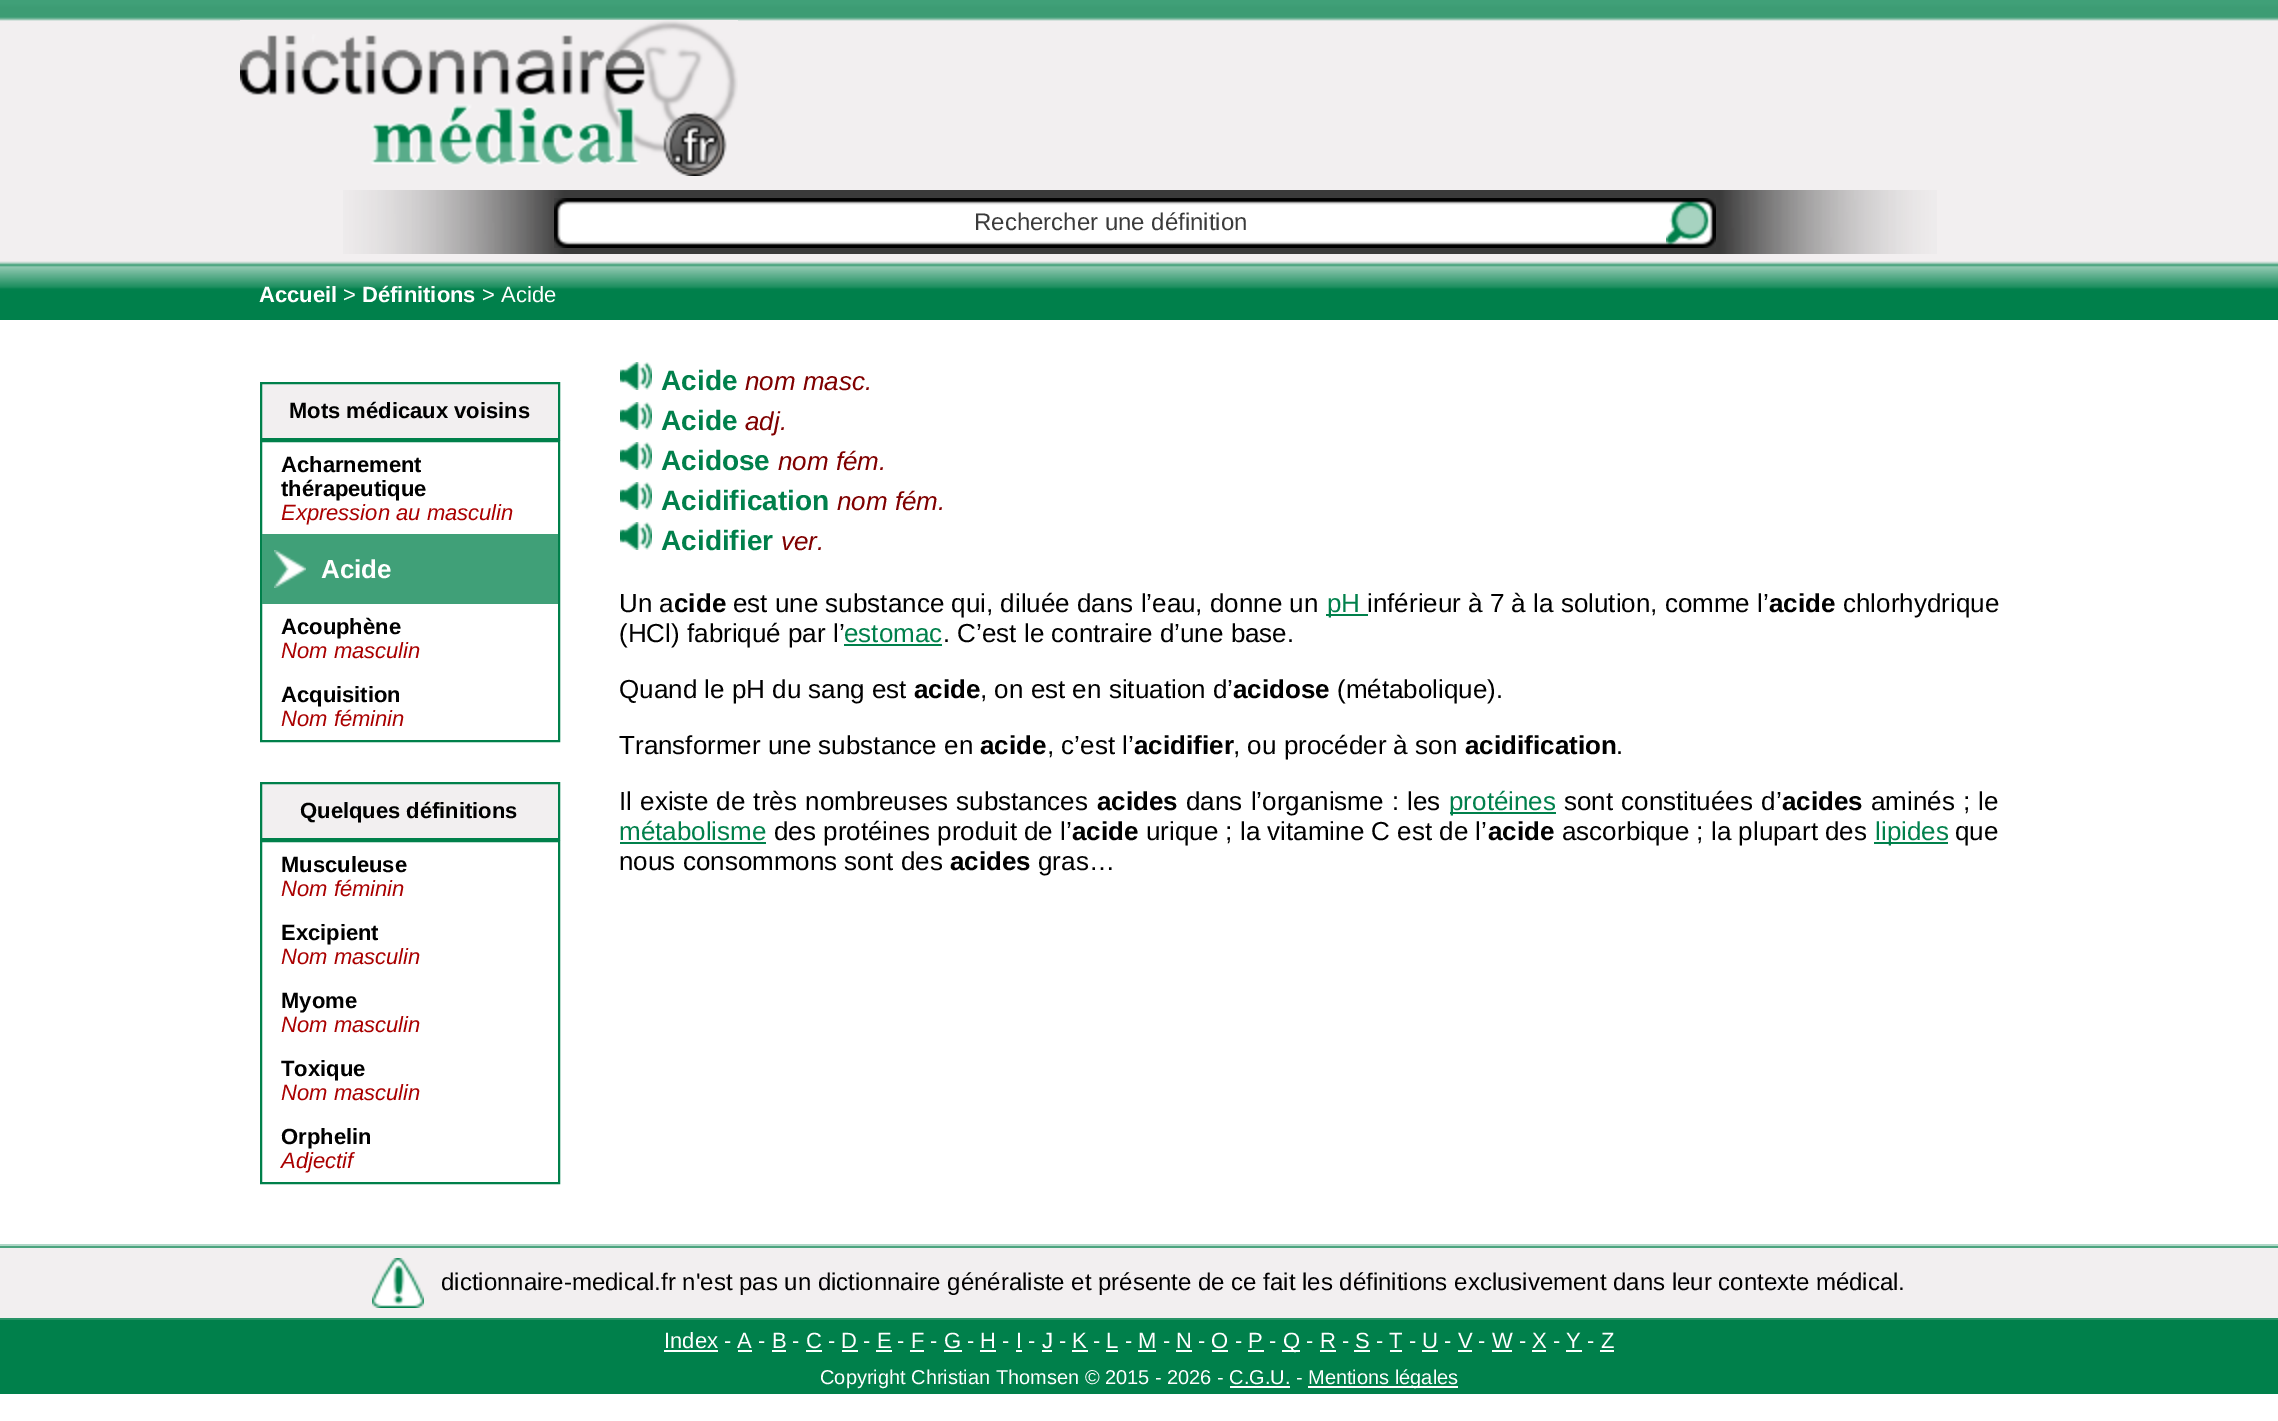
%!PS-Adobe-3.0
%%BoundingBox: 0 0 2278 1421
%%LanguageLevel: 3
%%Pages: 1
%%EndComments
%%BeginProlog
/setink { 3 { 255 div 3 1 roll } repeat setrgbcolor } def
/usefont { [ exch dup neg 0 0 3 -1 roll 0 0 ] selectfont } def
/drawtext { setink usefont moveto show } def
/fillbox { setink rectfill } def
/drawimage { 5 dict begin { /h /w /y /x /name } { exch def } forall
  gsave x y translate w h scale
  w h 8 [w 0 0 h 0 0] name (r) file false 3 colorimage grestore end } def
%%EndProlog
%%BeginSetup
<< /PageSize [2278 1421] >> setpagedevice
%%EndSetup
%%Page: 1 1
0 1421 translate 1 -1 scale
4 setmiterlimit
0 0 2278 1421 255 255 255 fillbox
(assets/img1.rgb) 0 0 2278 320 drawimage
(assets/img2.rgb) 240 20 498 156 drawimage
(assets/img3.rgb) 343 190 1594 64 drawimage
(assets/img4.rgb) 554 198 1112 50 drawimage
(Rechercher une définition) 974 230 /LiberationSans-Regular 24 59 59 59 drawtext
(assets/img5.rgb) 1666 198 50 50 drawimage
(Accueil) 259 302 /LiberationSans-Bold 22 255 255 255 drawtext
(>) 343 302 /LiberationSans-Regular 22 255 255 255 drawtext
(Définitions) 362 302 /LiberationSans-Bold 22 255 255 255 drawtext
(> Acide) 482 302 /LiberationSans-Regular 22 255 255 255 drawtext
242 239 240 setink
261 383 moveto 559 383 lineto 559 439 lineto 261 439 lineto closepath gsave fill grestore
0 128 75 setink
2 setlinewidth
stroke
(Mots médicaux voisins) 289 418 /LiberationSans-Bold 22 0 0 0 drawtext
0 128 75 setink
261 441 298 300 rectstroke
(Acharnement) 281 472 /LiberationSans-Bold 22 0 0 0 drawtext
(thérapeutique) 281 496 /LiberationSans-Bold 22 0 0 0 drawtext
(Expression au masculin) 281 520 /LiberationSans-Italic 22 170 0 0 drawtext
262 534 296 70 64 160 120 fillbox
(assets/img6.rgb) 274 550 32 38 drawimage
(Acide) 321 578 /LiberationSans-Bold 26 255 255 255 drawtext
(Acouphène) 281 634 /LiberationSans-Bold 22 0 0 0 drawtext
(Nom masculin) 281 658 /LiberationSans-Italic 22 170 0 0 drawtext
(Acquisition) 281 702 /LiberationSans-Bold 22 0 0 0 drawtext
(Nom féminin) 281 726 /LiberationSans-Italic 22 170 0 0 drawtext
242 239 240 setink
261 783 moveto 559 783 lineto 559 839 lineto 261 839 lineto closepath gsave fill grestore
0 128 75 setink
stroke
(Quelques définitions) 300 818 /LiberationSans-Bold 22 0 0 0 drawtext
0 128 75 setink
261 841 298 342 rectstroke
(Musculeuse) 281 872 /LiberationSans-Bold 22 0 0 0 drawtext
(Nom féminin) 281 896 /LiberationSans-Italic 22 170 0 0 drawtext
(Excipient) 281 940 /LiberationSans-Bold 22 0 0 0 drawtext
(Nom masculin) 281 964 /LiberationSans-Italic 22 170 0 0 drawtext
(Myome) 281 1008 /LiberationSans-Bold 22 0 0 0 drawtext
(Nom masculin) 281 1032 /LiberationSans-Italic 22 170 0 0 drawtext
(Toxique) 281 1076 /LiberationSans-Bold 22 0 0 0 drawtext
(Nom masculin) 281 1100 /LiberationSans-Italic 22 170 0 0 drawtext
(Orphelin) 281 1144 /LiberationSans-Bold 22 0 0 0 drawtext
(Adjectif) 281 1168 /LiberationSans-Italic 22 170 0 0 drawtext
(assets/img7.rgb) 620 362 32 28 drawimage
(Acide) 661 390 /LiberationSans-Bold 28 0 128 75 drawtext
(nom masc.) 745 390 /LiberationSans-Italic 26 128 0 0 drawtext
(assets/img7.rgb) 620 402 32 28 drawimage
(Acide) 661 430 /LiberationSans-Bold 28 0 128 75 drawtext
(adj.) 745 430 /LiberationSans-Italic 26 128 0 0 drawtext
(assets/img7.rgb) 620 442 32 28 drawimage
(Acidose) 661 470 /LiberationSans-Bold 28 0 128 75 drawtext
(nom fém.) 778 470 /LiberationSans-Italic 26 128 0 0 drawtext
(assets/img7.rgb) 620 482 32 28 drawimage
(Acidification) 661 510 /LiberationSans-Bold 28 0 128 75 drawtext
(nom fém.) 837 510 /LiberationSans-Italic 26 128 0 0 drawtext
(assets/img7.rgb) 620 522 32 28 drawimage
(Acidifier) 661 550 /LiberationSans-Bold 28 0 128 75 drawtext
(ver.) 781 550 /LiberationSans-Italic 26 128 0 0 drawtext
(Un a) 619 612 /LiberationSans-Regular 26 0 0 0 drawtext
(cide) 674 612 /LiberationSans-Bold 26 0 0 0 drawtext
(est une substance qui, diluée dans l’eau, donne un) 733 612 /LiberationSans-Regular 26 0 0 0 drawtext
1326 614 42 2 0 128 75 fillbox
(pH) 1327 612 /LiberationSans-Regular 26 0 128 75 drawtext
(inférieur à 7 à la solution, comme l’) 1367 612 /LiberationSans-Regular 26 0 0 0 drawtext
(acide) 1769 612 /LiberationSans-Bold 26 0 0 0 drawtext
(chlorhydrique) 1843 612 /LiberationSans-Regular 26 0 0 0 drawtext
(\(HCl\) fabriqué par l’) 619 642 /LiberationSans-Regular 26 0 0 0 drawtext
(estomac) 844 642 /LiberationSans-Regular 26 0 128 75 drawtext
844 644 98 2 0 128 75 fillbox
(. C’est le contraire d’une base.) 943 642 /LiberationSans-Regular 26 0 0 0 drawtext
(Quand le pH du sang est) 619 698 /LiberationSans-Regular 26 0 0 0 drawtext
(acide) 914 698 /LiberationSans-Bold 26 0 0 0 drawtext
(, on est en situation d’) 980 698 /LiberationSans-Regular 26 0 0 0 drawtext
(acidose) 1233 698 /LiberationSans-Bold 26 0 0 0 drawtext
(\(métabolique\).) 1337 698 /LiberationSans-Regular 26 0 0 0 drawtext
(Transformer une substance en) 619 754 /LiberationSans-Regular 26 0 0 0 drawtext
(acide) 980 754 /LiberationSans-Bold 26 0 0 0 drawtext
(, c’est l’) 1047 754 /LiberationSans-Regular 26 0 0 0 drawtext
(acidifier) 1134 754 /LiberationSans-Bold 26 0 0 0 drawtext
(, ou procéder à son) 1233 754 /LiberationSans-Regular 26 0 0 0 drawtext
(acidification) 1465 754 /LiberationSans-Bold 26 0 0 0 drawtext
(.) 1616 754 /LiberationSans-Regular 26 0 0 0 drawtext
619 810 moveto 1 0 32 (Il existe de très nombreuses substances) widthshow
(acides) 1097 810 /LiberationSans-Bold 26 0 0 0 drawtext
/LiberationSans-Regular 26 usefont
1186 810 moveto 1 0 32 (dans l’organisme : les) widthshow
1450 812 106 2 0 128 75 fillbox
(protéines) 1449 810 /LiberationSans-Regular 26 0 128 75 drawtext
0 0 0 setink
1564 810 moveto 1 0 32 (sont constituées d’) widthshow
(acides) 1782 810 /LiberationSans-Bold 26 0 0 0 drawtext
/LiberationSans-Regular 26 usefont
1871 810 moveto 1 0 32 (aminés ; le) widthshow
(métabolisme) 619 840 /LiberationSans-Regular 26 0 128 75 drawtext
620 842 146 2 0 128 75 fillbox
(des protéines produit de l’) 774 840 /LiberationSans-Regular 26 0 0 0 drawtext
(acide) 1072 840 /LiberationSans-Bold 26 0 0 0 drawtext
(urique ; la vitamine C est de l’) 1146 840 /LiberationSans-Regular 26 0 0 0 drawtext
(acide) 1488 840 /LiberationSans-Bold 26 0 0 0 drawtext
(ascorbique ; la plupart des) 1562 840 /LiberationSans-Regular 26 0 0 0 drawtext
1874 842 74 2 0 128 75 fillbox
(lipides) 1875 840 /LiberationSans-Regular 26 0 128 75 drawtext
(que) 1955 840 /LiberationSans-Regular 26 0 0 0 drawtext
(nous consommons sont des) 619 870 /LiberationSans-Regular 26 0 0 0 drawtext
(acides) 950 870 /LiberationSans-Bold 26 0 0 0 drawtext
(gras…) 1038 870 /LiberationSans-Regular 26 0 0 0 drawtext
0 1244 2278 2 175 215 199 fillbox
0 1248 2278 70 242 239 240 fillbox
0 1246 2278 2 76 164 127 fillbox
0 1318 2278 2 40 147 103 fillbox
(assets/img8.rgb) 372 1258 52 50 drawimage
(dictionnaire-medical.fr n'est pas un dictionnaire généraliste et présente de ce fait les définitions exclusivement dans leur contexte médical.) 441 1290 /LiberationSans-Regular 24 0 0 0 drawtext
0 1320 2278 74 0 128 75 fillbox
(Index - A - B - C - D - E - F - G - H - I - J - K - L - M - N - O - P -) 664 1348 /LiberationSans-Regular 22 255 255 255 drawtext
664 1350 54 2 255 255 255 fillbox
1282 1350 18 2 255 255 255 fillbox
(Q - R - S - T - U - V - W - X - Y - Z) 1283 1348 /LiberationSans-Regular 22 255 255 255 drawtext
738 1350 14 2 255 255 255 fillbox
772 1350 14 2 255 255 255 fillbox
806 1350 16 2 255 255 255 fillbox
842 1350 16 2 255 255 255 fillbox
876 1350 16 2 255 255 255 fillbox
910 1350 14 2 255 255 255 fillbox
944 1350 18 2 255 255 255 fillbox
980 1350 16 2 255 255 255 fillbox
1016 1350 6 2 255 255 255 fillbox
1042 1350 10 2 255 255 255 fillbox
1072 1350 16 2 255 255 255 fillbox
1106 1350 12 2 255 255 255 fillbox
1138 1350 18 2 255 255 255 fillbox
1176 1350 16 2 255 255 255 fillbox
1212 1350 16 2 255 255 255 fillbox
1248 1350 16 2 255 255 255 fillbox
1320 1350 16 2 255 255 255 fillbox
1354 1350 16 2 255 255 255 fillbox
1390 1350 12 2 255 255 255 fillbox
1422 1350 16 2 255 255 255 fillbox
1458 1350 14 2 255 255 255 fillbox
1492 1350 20 2 255 255 255 fillbox
1532 1350 14 2 255 255 255 fillbox
1566 1350 16 2 255 255 255 fillbox
1600 1350 14 2 255 255 255 fillbox
(Copyright Christian Thomsen © 2015 - 2026 - C.G.U. -) 820 1384 /LiberationSans-Regular 20 255 255 255 drawtext
1308 1386 150 2 255 255 255 fillbox
(Mentions légales) 1308 1384 /LiberationSans-Regular 20 255 255 255 drawtext
1230 1386 60 2 255 255 255 fillbox
showpage
%%EOF
